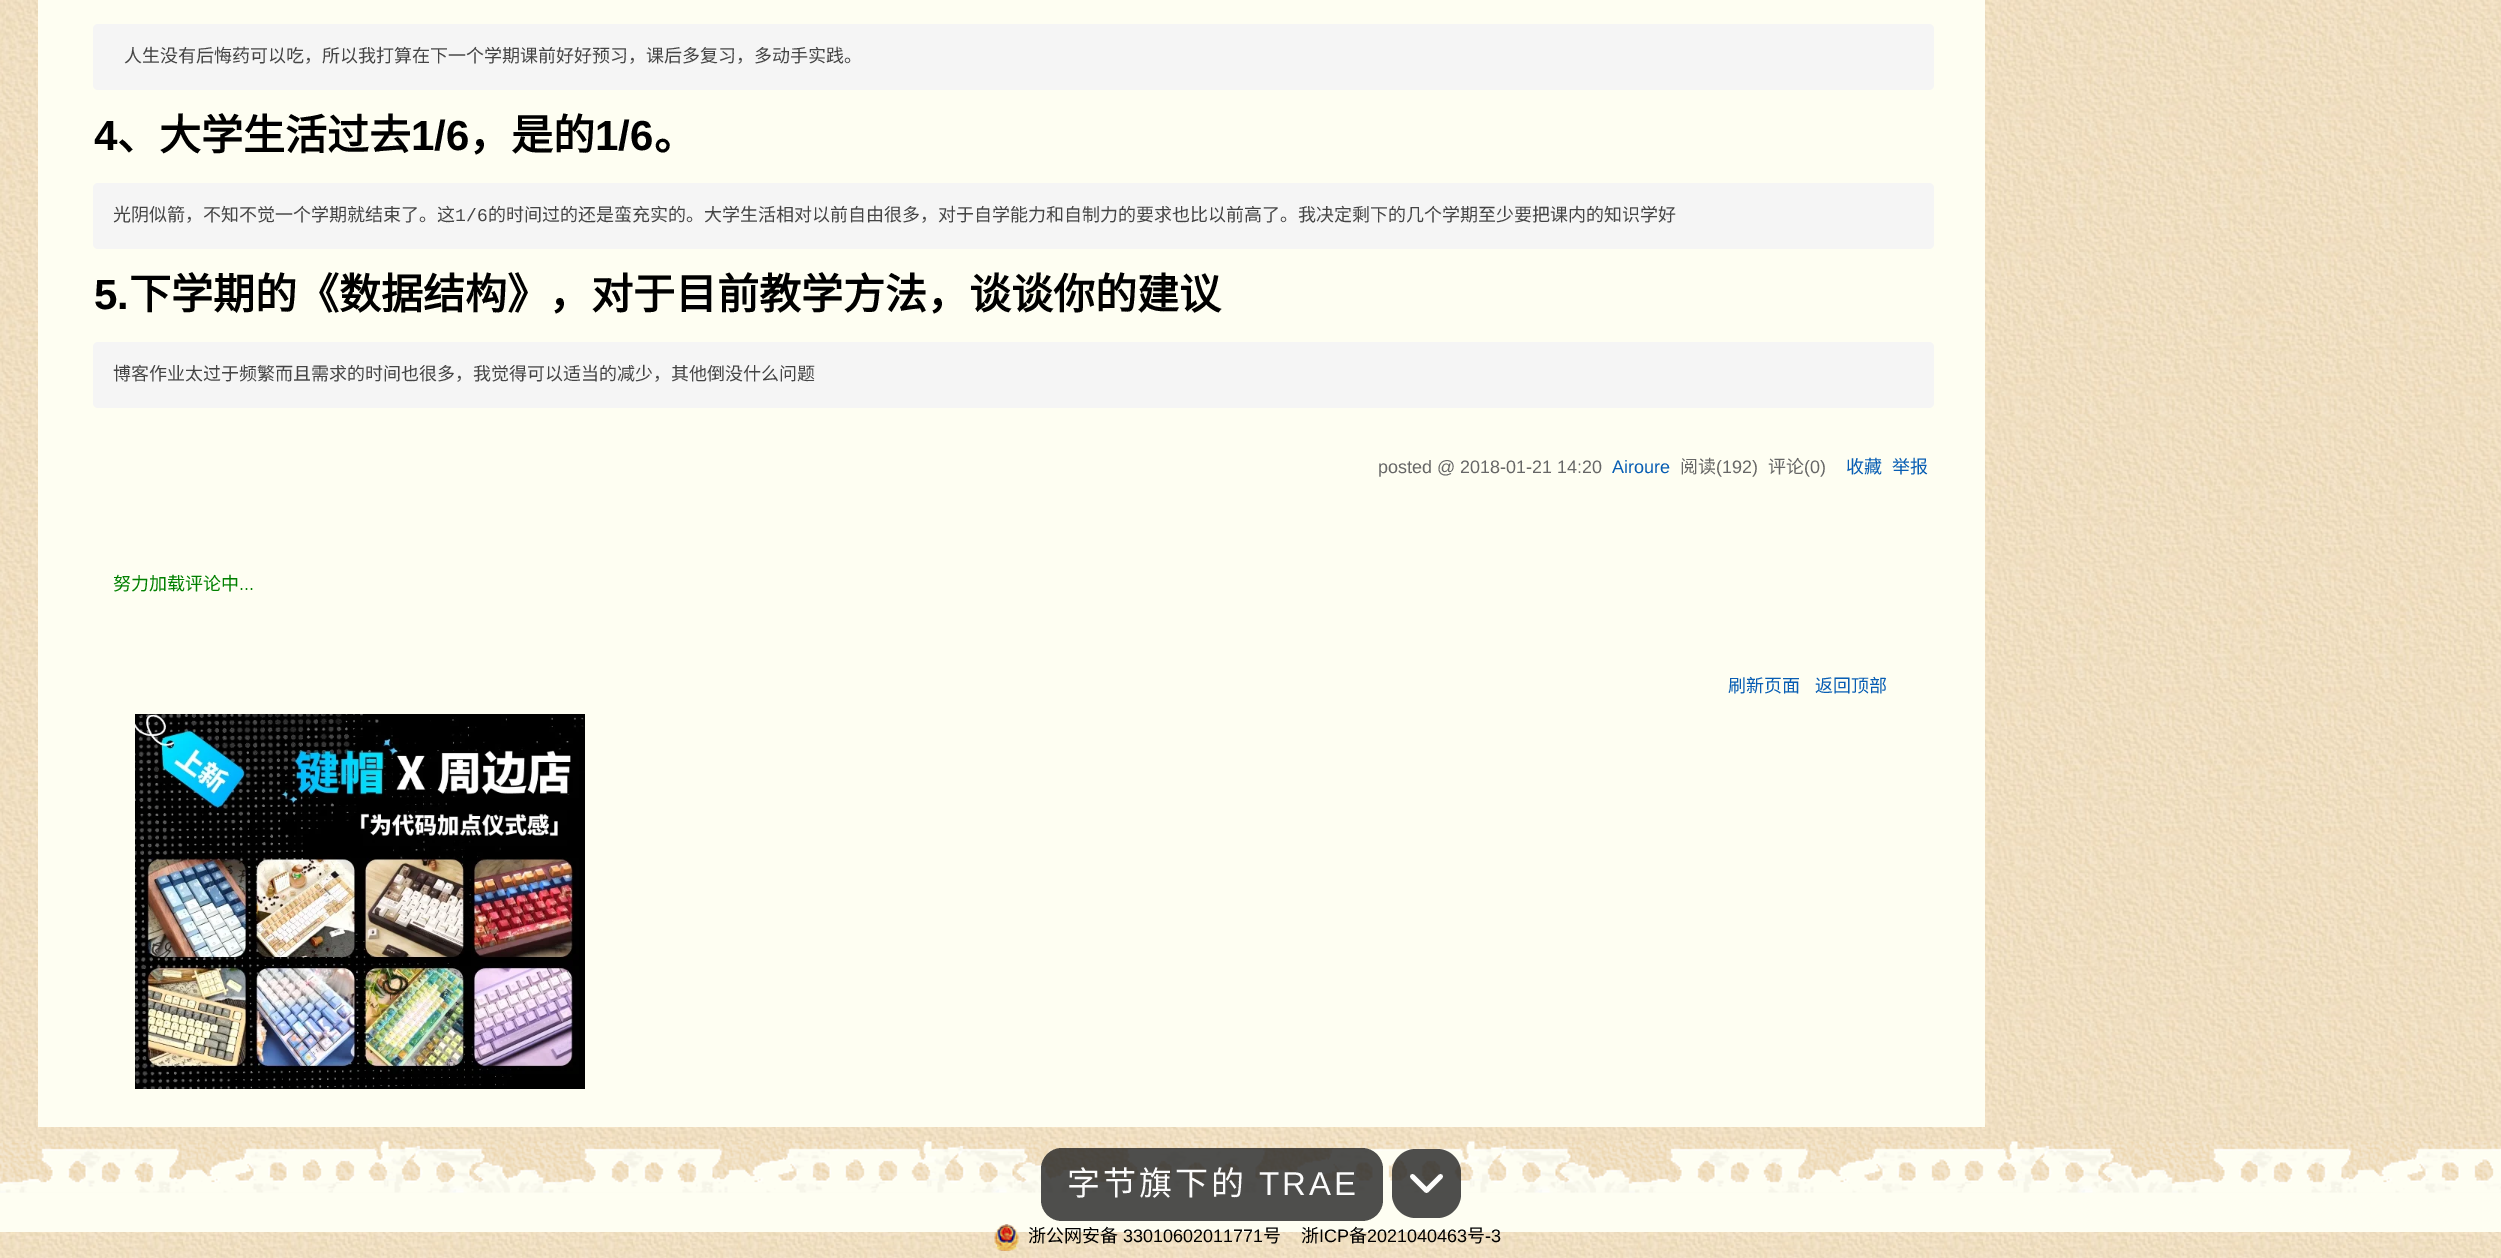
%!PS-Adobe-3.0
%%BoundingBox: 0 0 2501 1258
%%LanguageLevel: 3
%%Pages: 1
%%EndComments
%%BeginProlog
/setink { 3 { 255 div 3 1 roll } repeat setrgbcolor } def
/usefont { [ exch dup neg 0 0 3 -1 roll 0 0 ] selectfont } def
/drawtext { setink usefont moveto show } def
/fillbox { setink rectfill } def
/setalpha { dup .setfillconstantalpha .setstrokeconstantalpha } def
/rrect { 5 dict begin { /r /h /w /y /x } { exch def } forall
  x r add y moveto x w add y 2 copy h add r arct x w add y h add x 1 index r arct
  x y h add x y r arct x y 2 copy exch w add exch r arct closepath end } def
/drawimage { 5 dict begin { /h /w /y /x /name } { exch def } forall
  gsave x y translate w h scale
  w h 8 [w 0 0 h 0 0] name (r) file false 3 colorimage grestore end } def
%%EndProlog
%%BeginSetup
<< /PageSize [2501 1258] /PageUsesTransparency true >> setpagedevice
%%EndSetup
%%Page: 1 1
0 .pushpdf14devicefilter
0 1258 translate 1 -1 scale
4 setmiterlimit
0 0 2501 1258 255 255 255 fillbox
(assets/img1.rgb) 0 0 2501 1258 drawimage
38 0 1947 1127 254 254 242 fillbox
245 245 245 setink
93 24 1841 66 5 rrect fill
(人生没有后悔药可以吃，所以我打算在下一个学期课前好好预习，课后多复习，多动手实践。) 124 62 /NotoSansCJKSC-Regular 18 68 68 68 drawtext
(4) 94 150 /LiberationSans-Bold 42 0 0 0 drawtext
(、大学生活过去) 117 150 /NotoSansCJKSC-Bold 42 0 0 0 drawtext
(1/6) 411 150 /LiberationSans-Bold 42 0 0 0 drawtext
(，是的) 469 150 /NotoSansCJKSC-Bold 42 0 0 0 drawtext
(1/6) 595 150 /LiberationSans-Bold 42 0 0 0 drawtext
(。) 654 150 /NotoSansCJKSC-Bold 42 0 0 0 drawtext
245 245 245 setink
93 183 1841 66 5 rrect fill
(光阴似箭，不知不觉一个学期就结束了。这) 113 221 /NotoSansCJKSC-Regular 18 68 68 68 drawtext
(1/6) 455 221 /LiberationMono-Regular 18 68 68 68 drawtext
(的时间过的还是蛮充实的。大学生活相对以前自由很多，对于自学能力和自制力的要求也比以前高了。我决定剩下的几个学期至少要把课内的知识学好) 488 221 /NotoSansCJKSC-Regular 18 68 68 68 drawtext
(5.) 94 309 /LiberationSans-Bold 42 0 0 0 drawtext
(下学期的《数据结构》，对于目前教学方法，谈谈你的建议) 129 309 /NotoSansCJKSC-Bold 42 0 0 0 drawtext
245 245 245 setink
93 342 1841 66 5 rrect fill
(博客作业太过于频繁而且需求的时间也很多，我觉得可以适当的减少，其他倒没什么问题) 113 380 /NotoSansCJKSC-Regular 18 68 68 68 drawtext
(posted @ 2018-01-21 14:20) 1378 473 /LiberationSans-Regular 18 102 102 102 drawtext
(Airoure) 1612 473 /LiberationSans-Regular 18 7 93 179 drawtext
(阅读) 1680 473 /NotoSansCJKSC-Regular 18 102 102 102 drawtext
(\(192\)) 1716 473 /LiberationSans-Regular 18 102 102 102 drawtext
(评论) 1768 473 /NotoSansCJKSC-Regular 18 102 102 102 drawtext
(\(0\)) 1804 473 /LiberationSans-Regular 18 102 102 102 drawtext
(收藏) 1846 473 /NotoSansCJKSC-Regular 18 7 93 179 drawtext
(举报) 1892 473 /NotoSansCJKSC-Regular 18 7 93 179 drawtext
(努力加载评论中) 113 590 /NotoSansCJKSC-Regular 18 0 128 0 drawtext
(...) 239 590 /LiberationSans-Regular 18 0 128 0 drawtext
(刷新页面) 1728 692 /NotoSansCJKSC-Regular 18 7 93 179 drawtext
(返回顶部) 1815 692 /NotoSansCJKSC-Regular 18 7 93 179 drawtext
(assets/img2.rgb) 135 714 450 375 drawimage
0 1192 2501 40 254 254 242 fillbox
(assets/img3.rgb) 0 1141 2501 52 drawimage
(assets/img4.rgb) 994 1224 25 27 drawimage
(浙公网安备) 1028 1242 /NotoSansCJKSC-Regular 18 0 0 0 drawtext
(33010602011771) 1123 1242 /LiberationSans-Regular 18 0 0 0 drawtext
(号) 1263 1242 /NotoSansCJKSC-Regular 18 0 0 0 drawtext
(浙) 1301 1242 /NotoSansCJKSC-Regular 18 0 0 0 drawtext
(ICP) 1319 1242 /LiberationSans-Regular 18 0 0 0 drawtext
(备) 1349 1242 /NotoSansCJKSC-Regular 18 0 0 0 drawtext
(2021040463) 1367 1242 /LiberationSans-Regular 18 0 0 0 drawtext
(号) 1467 1242 /NotoSansCJKSC-Regular 18 0 0 0 drawtext
(-3) 1485 1242 /LiberationSans-Regular 18 0 0 0 drawtext
0.8 setalpha
34 34 34 setink
1041 1148 342 73 21 rrect fill
/NotoSansCJKSC-Regular 33 usefont
1 setalpha
251 251 251 setink
1067 1195 moveto 3 0 (字节旗下的) ashow
/LiberationSans-Regular 33 usefont
1259 1195 moveto 3 0 (TRAE) ashow
0.8 setalpha
34 34 34 setink
1392 1149 69 69 24 rrect fill
0.98 setalpha
255 255 255 setink
4.7 setlinewidth
1 setlinecap
1 setlinejoin
1440.5 1176.5 moveto 1426.5 1190.5 lineto 1412.5 1176.5 lineto stroke
.poppdf14devicefilter showpage
%%EOF
